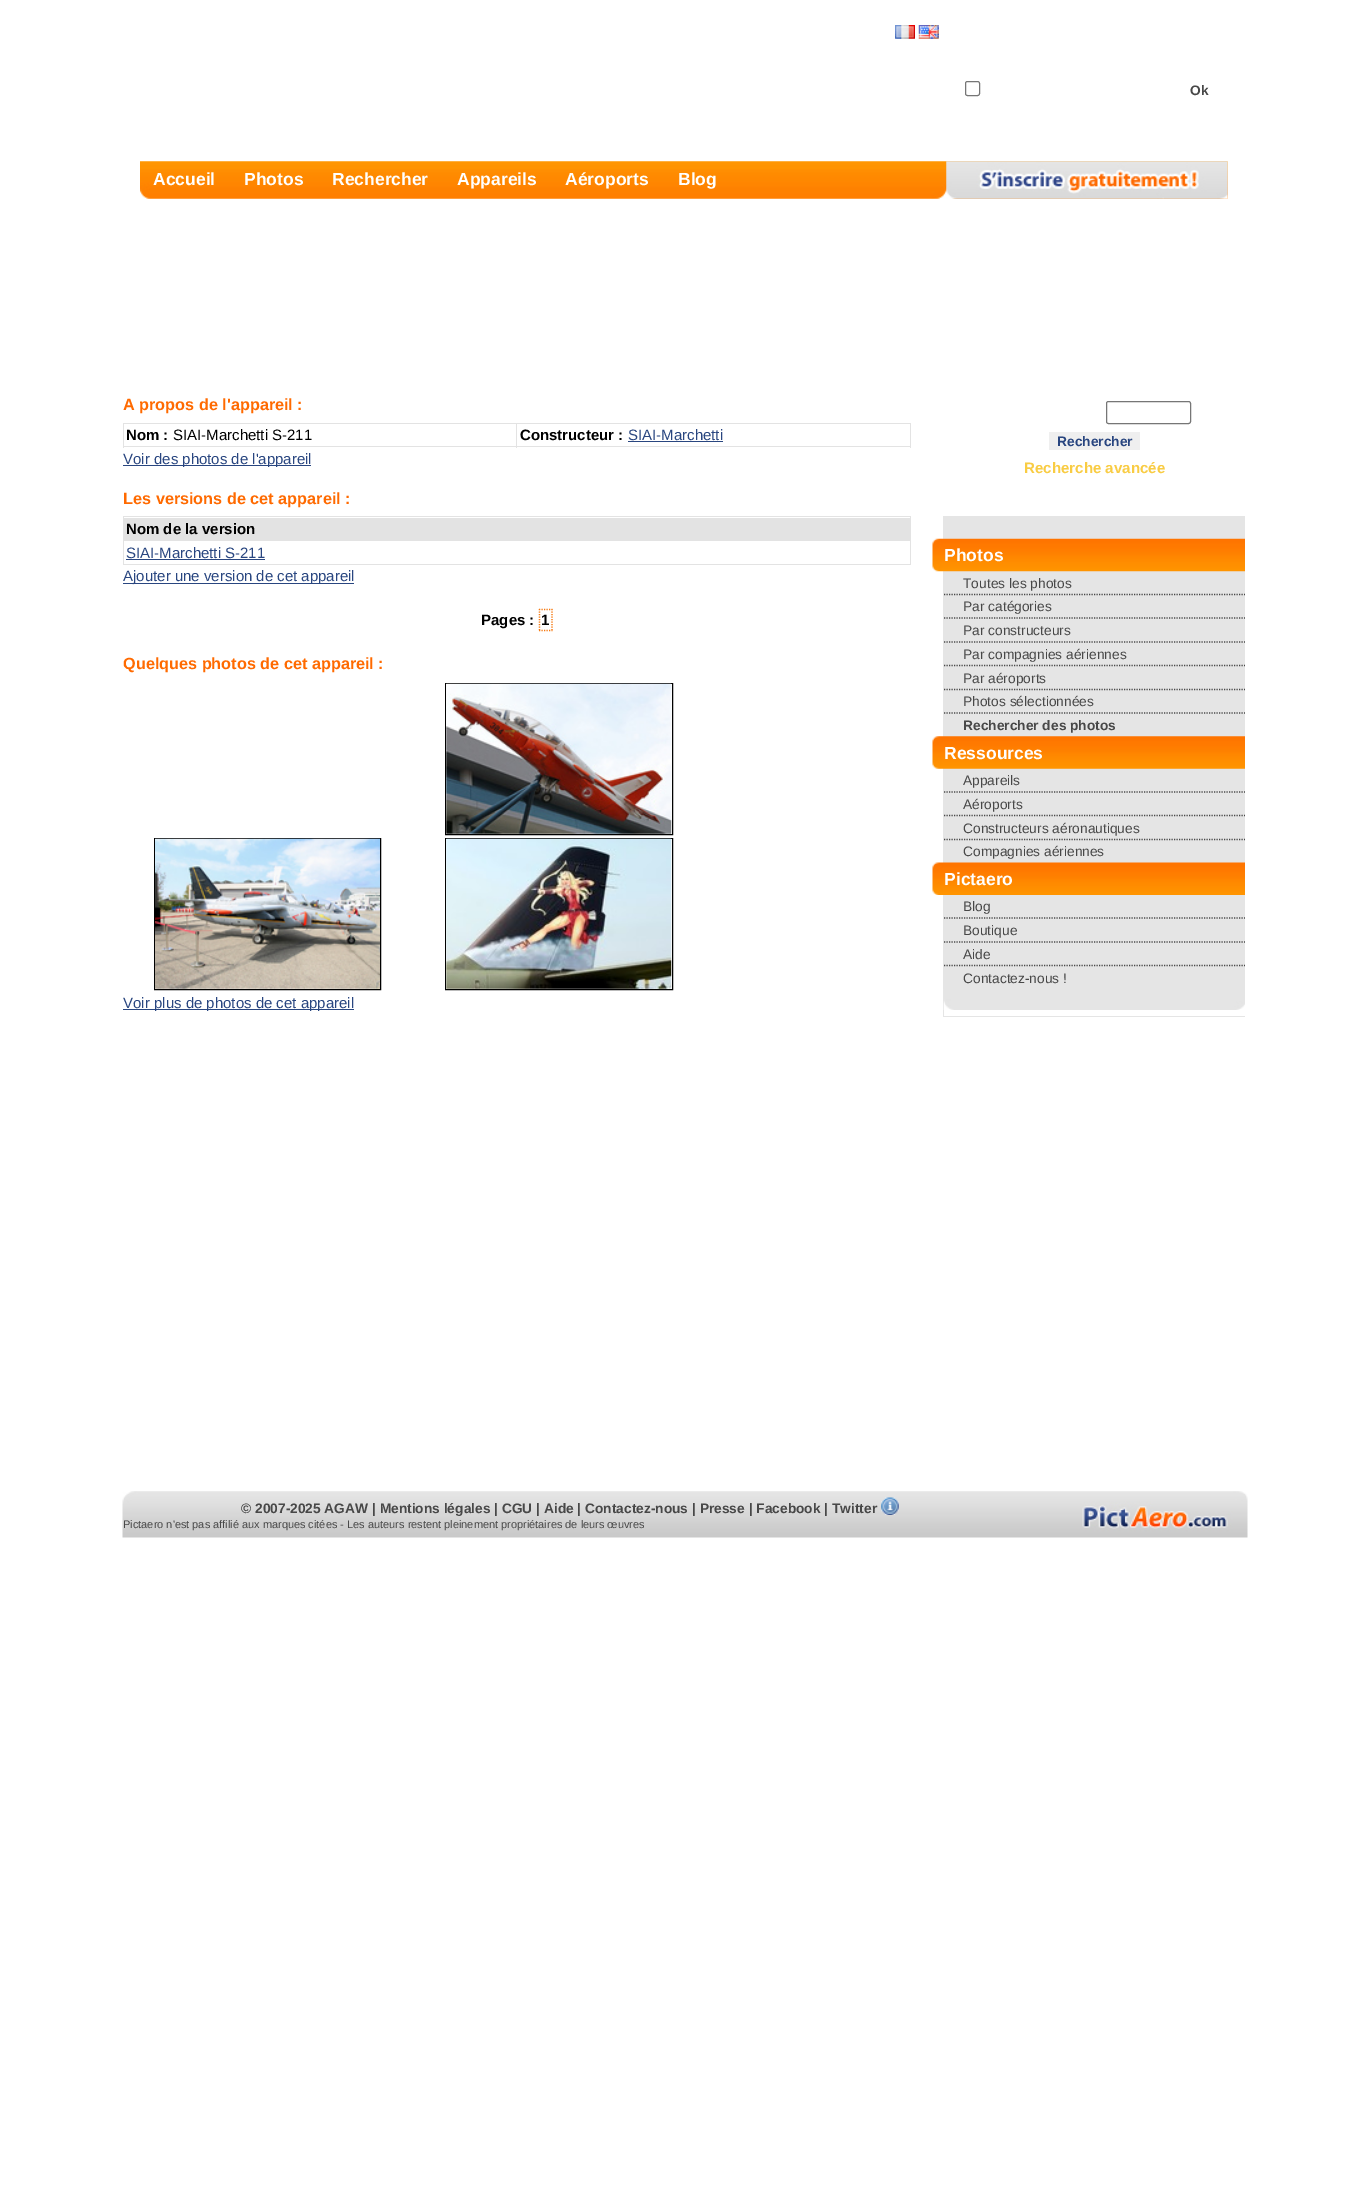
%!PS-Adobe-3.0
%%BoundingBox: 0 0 1367 2206
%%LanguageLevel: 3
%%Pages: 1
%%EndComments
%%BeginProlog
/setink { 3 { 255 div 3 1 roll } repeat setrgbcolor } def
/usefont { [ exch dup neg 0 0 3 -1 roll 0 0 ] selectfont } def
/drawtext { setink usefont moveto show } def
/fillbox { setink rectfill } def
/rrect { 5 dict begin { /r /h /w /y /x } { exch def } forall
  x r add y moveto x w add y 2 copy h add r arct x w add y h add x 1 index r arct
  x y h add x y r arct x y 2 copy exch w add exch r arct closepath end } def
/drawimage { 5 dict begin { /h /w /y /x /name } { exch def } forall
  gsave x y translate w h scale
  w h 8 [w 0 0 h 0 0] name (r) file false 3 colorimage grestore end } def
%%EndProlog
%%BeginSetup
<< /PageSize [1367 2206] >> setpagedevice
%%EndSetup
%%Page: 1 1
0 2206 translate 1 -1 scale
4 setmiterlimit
0 0 1367 2206 255 255 255 fillbox
(assets/img1.rgb) 895 25 20 14 drawimage
(assets/img2.rgb) 918 25 21 14 drawimage
118 118 118 setink
965.5 81.5 14 14 2 rrect stroke
(Ok) 1190 95 /LiberationSans-Bold 13.75 72 72 72 drawtext
(assets/img3.rgb) 140 161 1088 38 drawimage
(Accueil) 153 185 /LiberationSans-Bold 17.5 255 255 255 drawtext
(Photos) 244 185 /LiberationSans-Bold 17.5 255 255 255 drawtext
(Rechercher) 332 185 /LiberationSans-Bold 17.5 255 255 255 drawtext
(Appareils) 457 185 /LiberationSans-Bold 17.5 255 255 255 drawtext
(Aéroports) 565 185 /LiberationSans-Bold 17.5 255 255 255 drawtext
(Blog) 678 185 /LiberationSans-Bold 17.5 255 255 255 drawtext
(assets/img4.rgb) 946 161 282 38 drawimage
(A propos de l'appareil :) 123 410 /LiberationSans-Bold 16.25 255 106 0 drawtext
123 423 788 1 227 227 227 fillbox
910 423 1 25 227 227 227 fillbox
123 446 788 1 227 227 227 fillbox
123 423 1 25 227 227 227 fillbox
(Nom :) 126 440 /LiberationSans-Bold 15 0 0 0 drawtext
(SIAI-Marchetti S-211) 173 440 /LiberationSans-Regular 15 0 0 0 drawtext
516 423 1 25 227 227 227 fillbox
(Constructeur :) 520 440 /LiberationSans-Bold 15 0 0 0 drawtext
(SIAI-Marchetti) 628 440 /LiberationSans-Regular 15 41 70 128 drawtext
628 441 95 1 41 70 128 fillbox
123 465 188 1 41 70 128 fillbox
(Voir des photos de l'appareil) 123 464 /LiberationSans-Regular 15 41 70 128 drawtext
(Les versions de cet appareil :) 123 504 /LiberationSans-Bold 16.25 255 106 0 drawtext
123 516 788 1 227 227 227 fillbox
910 516 1 49 227 227 227 fillbox
123 564 788 1 227 227 227 fillbox
123 516 1 49 227 227 227 fillbox
124 518 786 23 227 227 227 fillbox
(Nom de la version) 126 534 /LiberationSans-Bold 15 0 0 0 drawtext
(SIAI-Marchetti S-211) 126 558 /LiberationSans-Regular 15 41 70 128 drawtext
126 559 139 1 41 70 128 fillbox
123 583 231 1 41 70 128 fillbox
(Ajouter une version de cet appareil) 123 581 /LiberationSans-Regular 15 41 70 128 drawtext
(Pages :) 481 625 /LiberationSans-Bold 15 0 0 0 drawtext
247 121 16 setink
1.2 setlinewidth
[1.25 1.25] 0 setdash
539 609.5 moveto 552.5 609.5 lineto 552 609 moveto 552 631 lineto 539 630.5 moveto 552.5 630.5 lineto 539.5 609 moveto 539.5 631 lineto stroke
(1) 541 625 /LiberationSans-Bold 15 0 0 0 drawtext
(Quelques photos de cet appareil :) 123 669 /LiberationSans-Bold 16.25 255 106 0 drawtext
0 0 0 setink
1 setlinewidth
[] 0 setdash
445.5 683.5 227 151 rectstroke
(assets/img5.rgb) 446 683 226 151 drawimage
154.5 838.5 226 151 rectstroke
(assets/img6.rgb) 155 838 225 151 drawimage
445.5 838.5 227 151 rectstroke
(assets/img7.rgb) 446 838 226 151 drawimage
123 1009 231 1 41 70 128 fillbox
(Voir plus de photos de cet appareil) 123 1008 /LiberationSans-Regular 15 41 70 128 drawtext
118 118 118 setink
1106.5 401.5 84 22 2 rrect stroke
1049 432 91 18 239 239 239 fillbox
(Rechercher) 1057 446 /LiberationSans-Bold 13.75 41 70 128 drawtext
(Recherche avancée) 1024 473 /LiberationSans-Bold 15.1 249 204 67 drawtext
943 516 302 501 229 229 229 fillbox
(assets/img8.rgb) 932 538 313 34 drawimage
(Photos) 944 561 /LiberationSans-Bold 17.5 255 255 255 drawtext
72 72 72 setink
1.2 setlinewidth
[1.25 1.25] 0 setdash
944 594.5 moveto 1245 594.5 lineto stroke
(Toutes les photos) 963 588 /LiberationSans-Regular 13.75 72 72 72 drawtext
944 618 moveto 1245 618 lineto stroke
(Par catégories) 963 611 /LiberationSans-Regular 13.75 72 72 72 drawtext
944 642 moveto 1245 642 lineto stroke
(Par constructeurs) 963 635 /LiberationSans-Regular 13.75 72 72 72 drawtext
944 665.5 moveto 1245 665.5 lineto stroke
(Par compagnies aériennes) 963 659 /LiberationSans-Regular 13.75 72 72 72 drawtext
944 689.5 moveto 1245 689.5 lineto stroke
(Par aéroports) 963 683 /LiberationSans-Regular 13.75 72 72 72 drawtext
944 713 moveto 1245 713 lineto stroke
(Photos sélectionnées) 963 706 /LiberationSans-Regular 13.75 72 72 72 drawtext
(Rechercher des photos) 963 730 /LiberationSans-Bold 13.75 72 72 72 drawtext
(assets/img9.rgb) 932 736 313 33 drawimage
(Ressources) 944 759 /LiberationSans-Bold 17.5 255 255 255 drawtext
72 72 72 setink
944 792 moveto 1245 792 lineto stroke
(Appareils) 963 785 /LiberationSans-Regular 13.75 72 72 72 drawtext
944 815.5 moveto 1245 815.5 lineto stroke
(Aéroports) 963 809 /LiberationSans-Regular 13.75 72 72 72 drawtext
944 839.5 moveto 1245 839.5 lineto stroke
(Constructeurs aéronautiques) 963 833 /LiberationSans-Regular 13.75 72 72 72 drawtext
(Compagnies aériennes) 963 856 /LiberationSans-Regular 13.75 72 72 72 drawtext
(assets/img10.rgb) 932 862 313 33 drawimage
(Pictaero) 944 885 /LiberationSans-Bold 17.5 255 255 255 drawtext
72 72 72 setink
944 918 moveto 1245 918 lineto stroke
(Blog) 963 911 /LiberationSans-Regular 13.75 72 72 72 drawtext
944 942 moveto 1245 942 lineto stroke
(Boutique) 963 935 /LiberationSans-Regular 13.75 72 72 72 drawtext
944 965.5 moveto 1245 965.5 lineto stroke
(Aide) 963 959 /LiberationSans-Regular 13.75 72 72 72 drawtext
(Contactez-nous !) 963 983 /LiberationSans-Regular 13.75 72 72 72 drawtext
944 1010 301 6 255 255 255 fillbox
(assets/img11.rgb) 943 989 302 21 drawimage
(assets/img12.rgb) 122 1491 1126 47 drawimage
(© 2007-2025 AGAW | Mentions légales | CGU | Aide | Contactez-nous | Presse | Facebook | Twitter) 241 1513 /LiberationSans-Bold 13.75 72 72 72 drawtext
(assets/img13.rgb) 881 1497 18 18 drawimage
(Pictaero n'est pas affilié aux marques citées - Les auteurs restent pleinement propriétaires de leurs œuvres) 123 1528 /LiberationSans-Regular 11 72 72 72 drawtext
showpage
%%EOF
